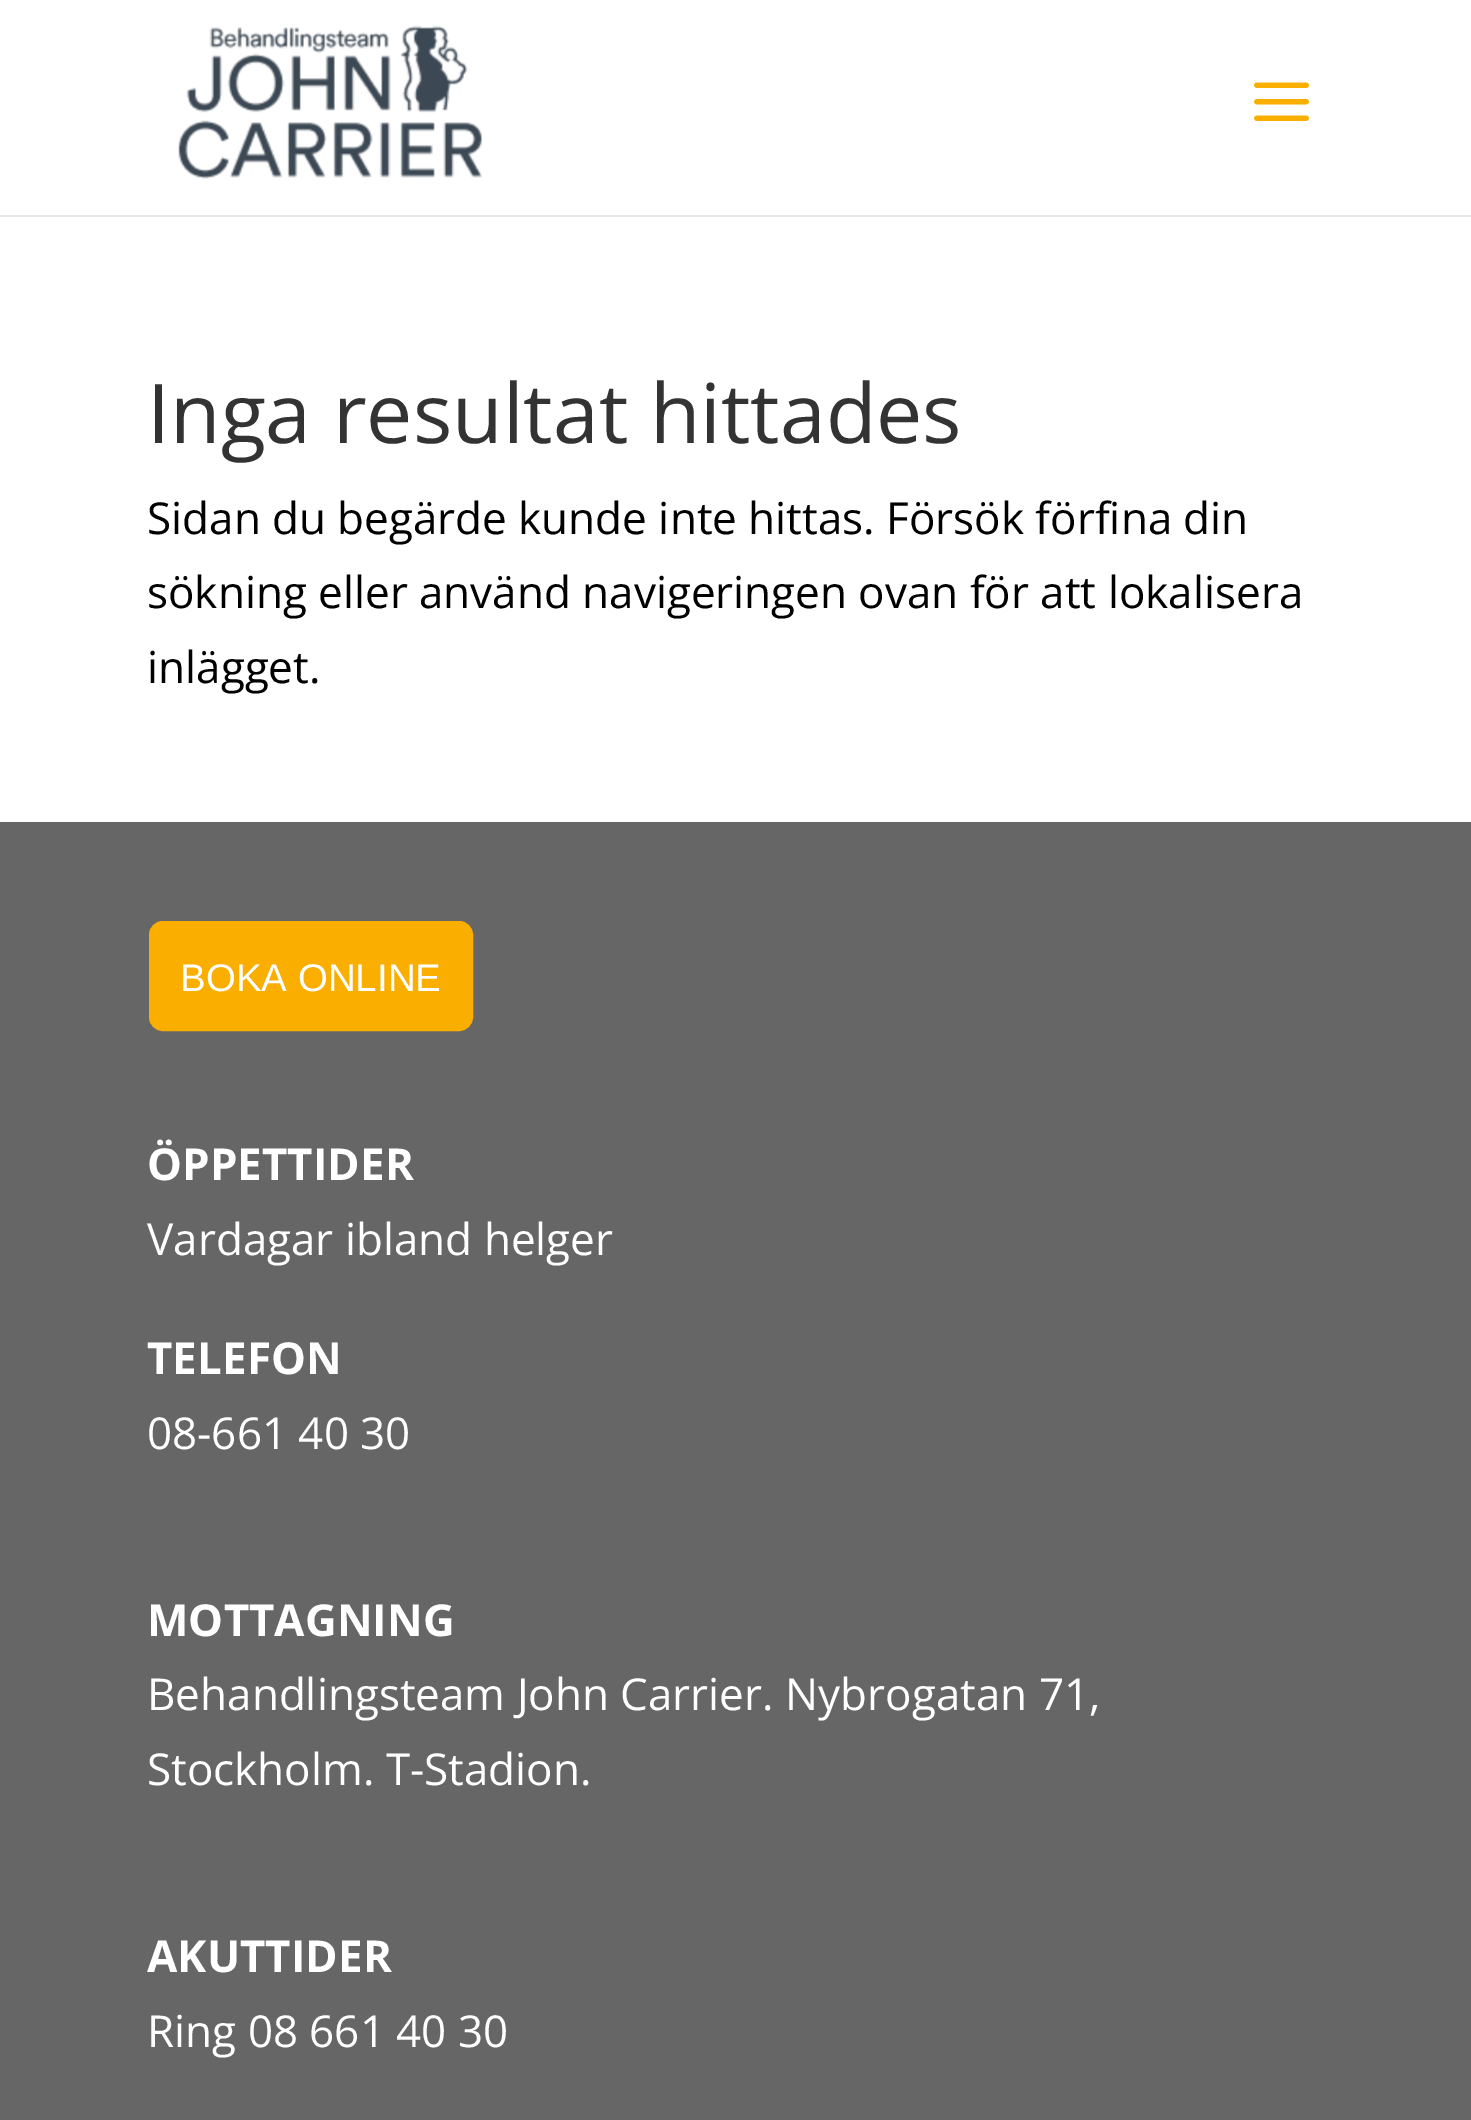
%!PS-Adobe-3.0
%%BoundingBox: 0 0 1471 2120
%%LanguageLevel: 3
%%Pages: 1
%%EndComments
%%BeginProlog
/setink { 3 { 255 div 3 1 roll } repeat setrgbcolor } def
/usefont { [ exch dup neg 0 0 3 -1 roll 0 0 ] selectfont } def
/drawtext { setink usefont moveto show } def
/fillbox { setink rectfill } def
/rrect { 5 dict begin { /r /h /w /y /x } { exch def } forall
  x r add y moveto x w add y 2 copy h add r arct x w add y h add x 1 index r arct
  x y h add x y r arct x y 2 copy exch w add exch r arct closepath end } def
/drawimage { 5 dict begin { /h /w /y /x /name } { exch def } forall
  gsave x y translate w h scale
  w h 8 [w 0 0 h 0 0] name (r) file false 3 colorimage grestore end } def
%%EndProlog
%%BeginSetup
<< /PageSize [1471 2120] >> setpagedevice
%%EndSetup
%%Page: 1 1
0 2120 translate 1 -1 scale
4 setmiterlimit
0 0 1471 2120 255 255 255 fillbox
0 215 1471 2 230 230 230 fillbox
(assets/img1.rgb) 178 25 304 154 drawimage
(assets/img2.rgb) 1254 82 55 39 drawimage
(Inga resultat hittades) 147 443 /OpenSans-Regular 82.5 51 51 51 drawtext
(Sidan du begärde kunde inte hittas. Försök förfina din) 147 534 /OpenSans-Regular 44 0 0 0 drawtext
(sökning eller använd navigeringen ovan för att lokalisera) 147 608 /OpenSans-Regular 44 0 0 0 drawtext
(inlägget.) 147 683 /OpenSans-Regular 44 0 0 0 drawtext
0 822 1471 1298 102 102 102 fillbox
249 174 0 setink
152 924 318 104 11 rrect gsave fill grestore
6 setlinewidth
stroke
(BOKA ONLINE) 180 991 /LiberationSans-Regular 38.5 255 255 255 drawtext
(ÖPPETTIDER) 147 1180 /OpenSans-Bold 44 255 255 255 drawtext
(Vardagar ibland helger) 147 1255 /OpenSans-Regular 44 255 255 255 drawtext
(TELEFON) 147 1374 /OpenSans-Bold 44 255 255 255 drawtext
(08-661 40 30) 147 1449 /OpenSans-Regular 44 255 255 255 drawtext
(MOTTAGNING) 147 1636 /OpenSans-Bold 44 255 255 255 drawtext
(Behandlingsteam John Carrier. Nybrogatan 71,) 147 1710 /OpenSans-Regular 44 255 255 255 drawtext
(Stockholm. T-Stadion.) 147 1785 /OpenSans-Regular 44 255 255 255 drawtext
(AKUTTIDER) 147 1972 /OpenSans-Bold 44 255 255 255 drawtext
(Ring 08 661 40 30) 147 2047 /OpenSans-Regular 44 255 255 255 drawtext
showpage
%%EOF
